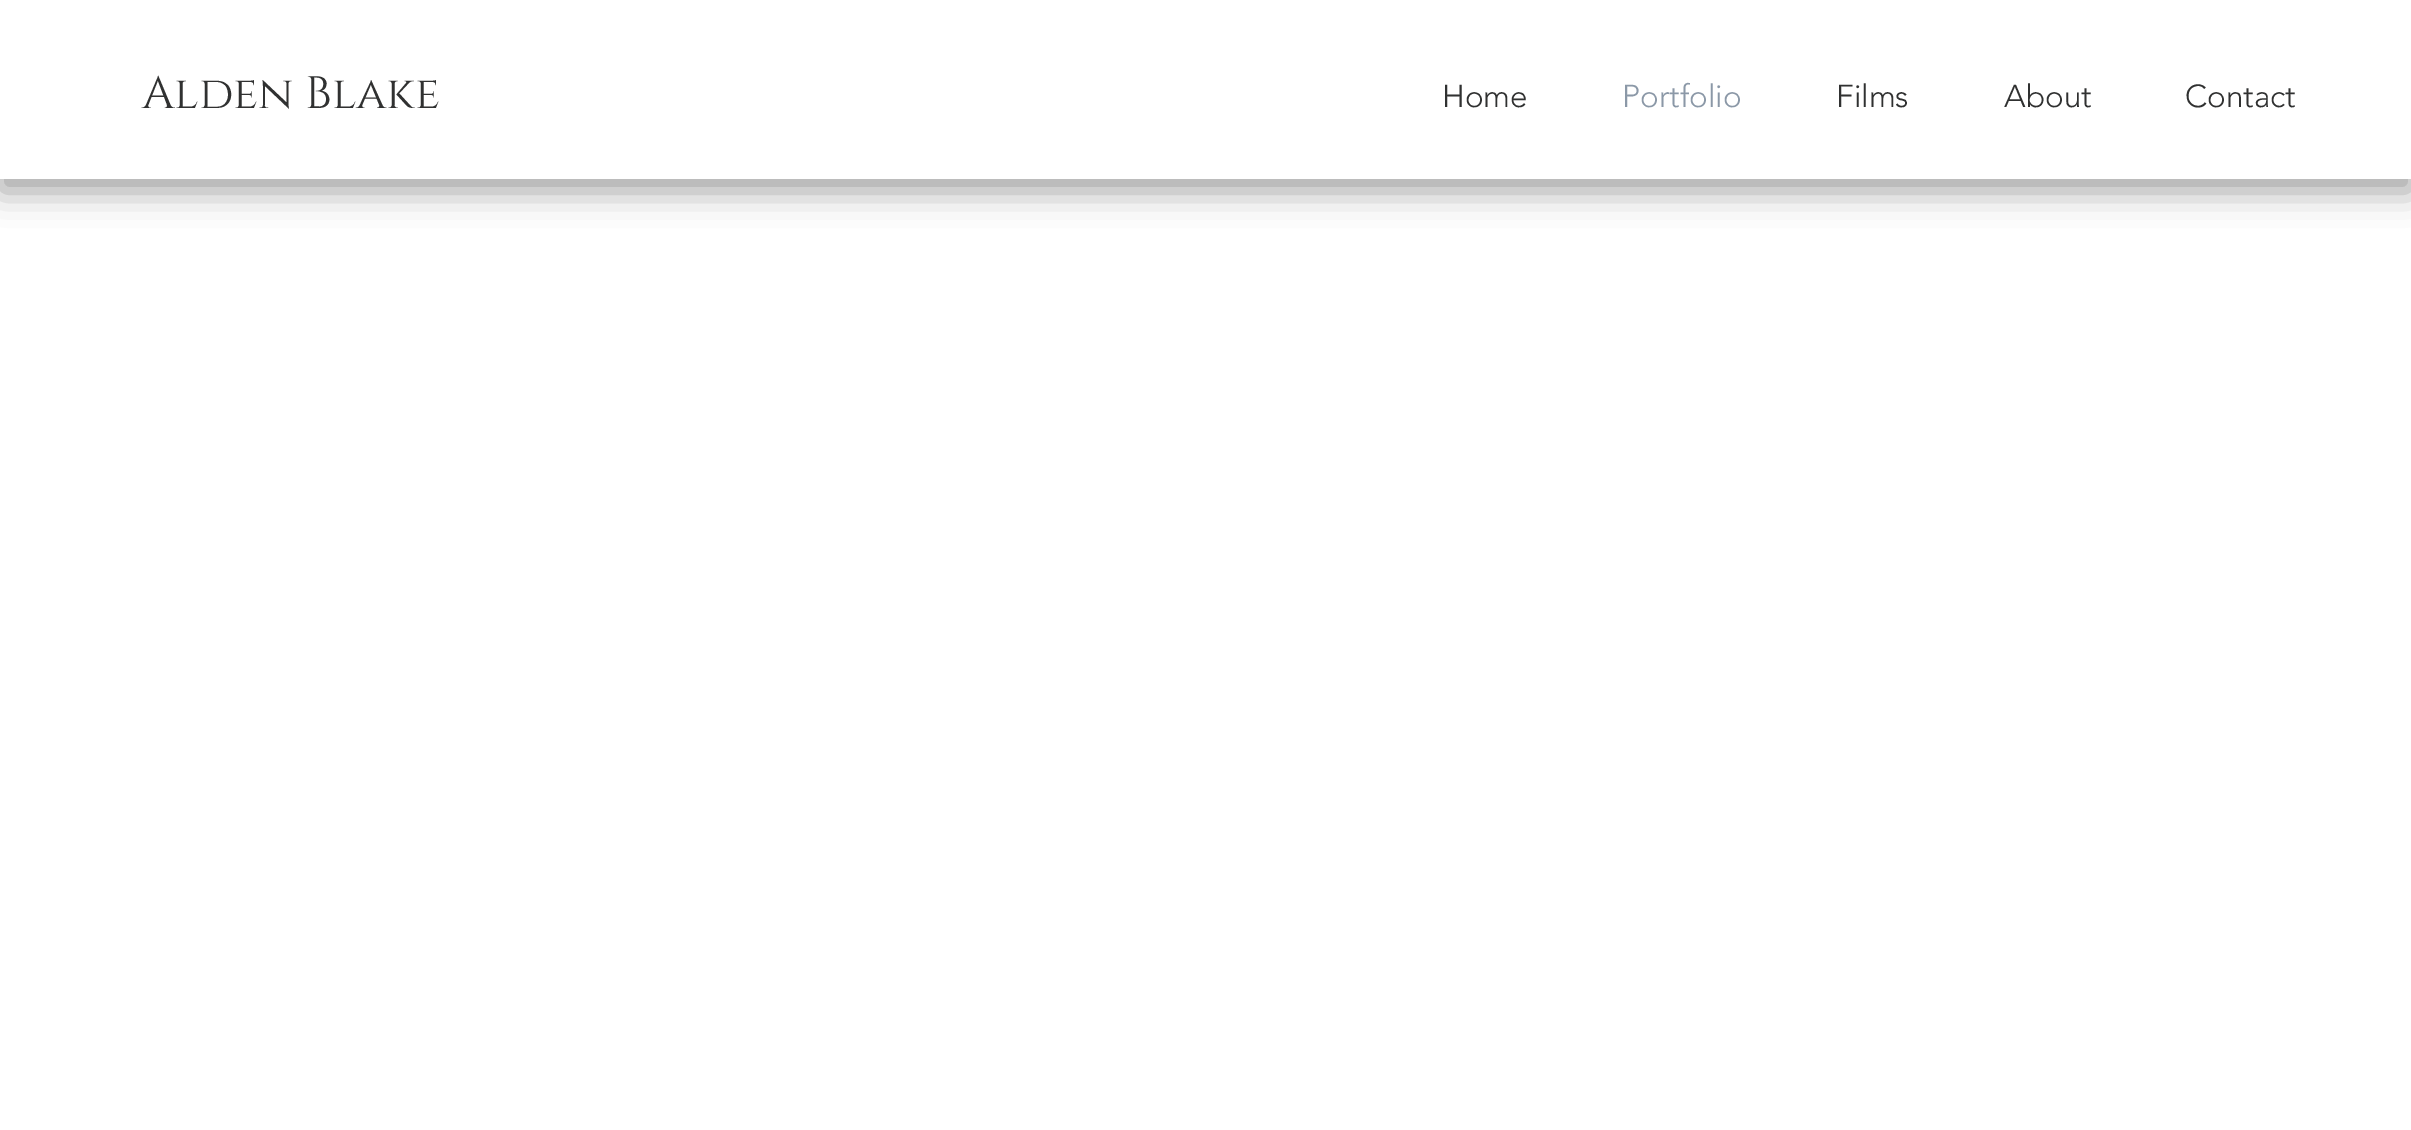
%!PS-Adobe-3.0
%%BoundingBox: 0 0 2411 1130
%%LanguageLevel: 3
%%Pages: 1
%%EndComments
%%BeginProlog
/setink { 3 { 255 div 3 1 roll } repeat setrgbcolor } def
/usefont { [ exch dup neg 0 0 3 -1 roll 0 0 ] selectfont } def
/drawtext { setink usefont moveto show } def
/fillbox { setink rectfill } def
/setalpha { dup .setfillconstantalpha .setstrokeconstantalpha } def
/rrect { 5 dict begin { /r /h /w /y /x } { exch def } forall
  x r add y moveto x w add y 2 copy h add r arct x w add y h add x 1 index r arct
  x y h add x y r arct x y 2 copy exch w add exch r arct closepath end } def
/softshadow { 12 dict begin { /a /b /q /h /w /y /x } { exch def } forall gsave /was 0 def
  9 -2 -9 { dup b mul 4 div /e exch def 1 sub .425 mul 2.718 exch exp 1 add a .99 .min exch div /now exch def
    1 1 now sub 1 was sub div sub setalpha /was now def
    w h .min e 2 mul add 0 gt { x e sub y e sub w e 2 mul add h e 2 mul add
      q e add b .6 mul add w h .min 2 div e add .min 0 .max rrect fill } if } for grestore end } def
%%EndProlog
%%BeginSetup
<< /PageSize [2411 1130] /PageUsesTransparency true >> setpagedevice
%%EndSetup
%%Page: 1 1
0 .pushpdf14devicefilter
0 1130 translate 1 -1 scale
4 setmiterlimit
0 0 2411 1130 255 255 255 fillbox
0 0 0 setink
0 12 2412 179 0 16.5 0.38 softshadow
0 0 2411 179 255 255 255 fillbox
(Alden Blake) 142 108 /Cinzel-Regular 45.5 48 49 49 drawtext
(Home) 1442 107 /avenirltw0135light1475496-Light 31.5 48 49 49 drawtext
(Portfolio) 1622 107 /avenirltw0135light1475496-Light 31.5 139 152 167 drawtext
(Films) 1836 107 /avenirltw0135light1475496-Light 31.5 48 49 49 drawtext
(About) 2004 107 /avenirltw0135light1475496-Light 31.5 48 49 49 drawtext
(Contact) 2185 107 /avenirltw0135light1475496-Light 31.5 48 49 49 drawtext
.poppdf14devicefilter showpage
%%EOF
